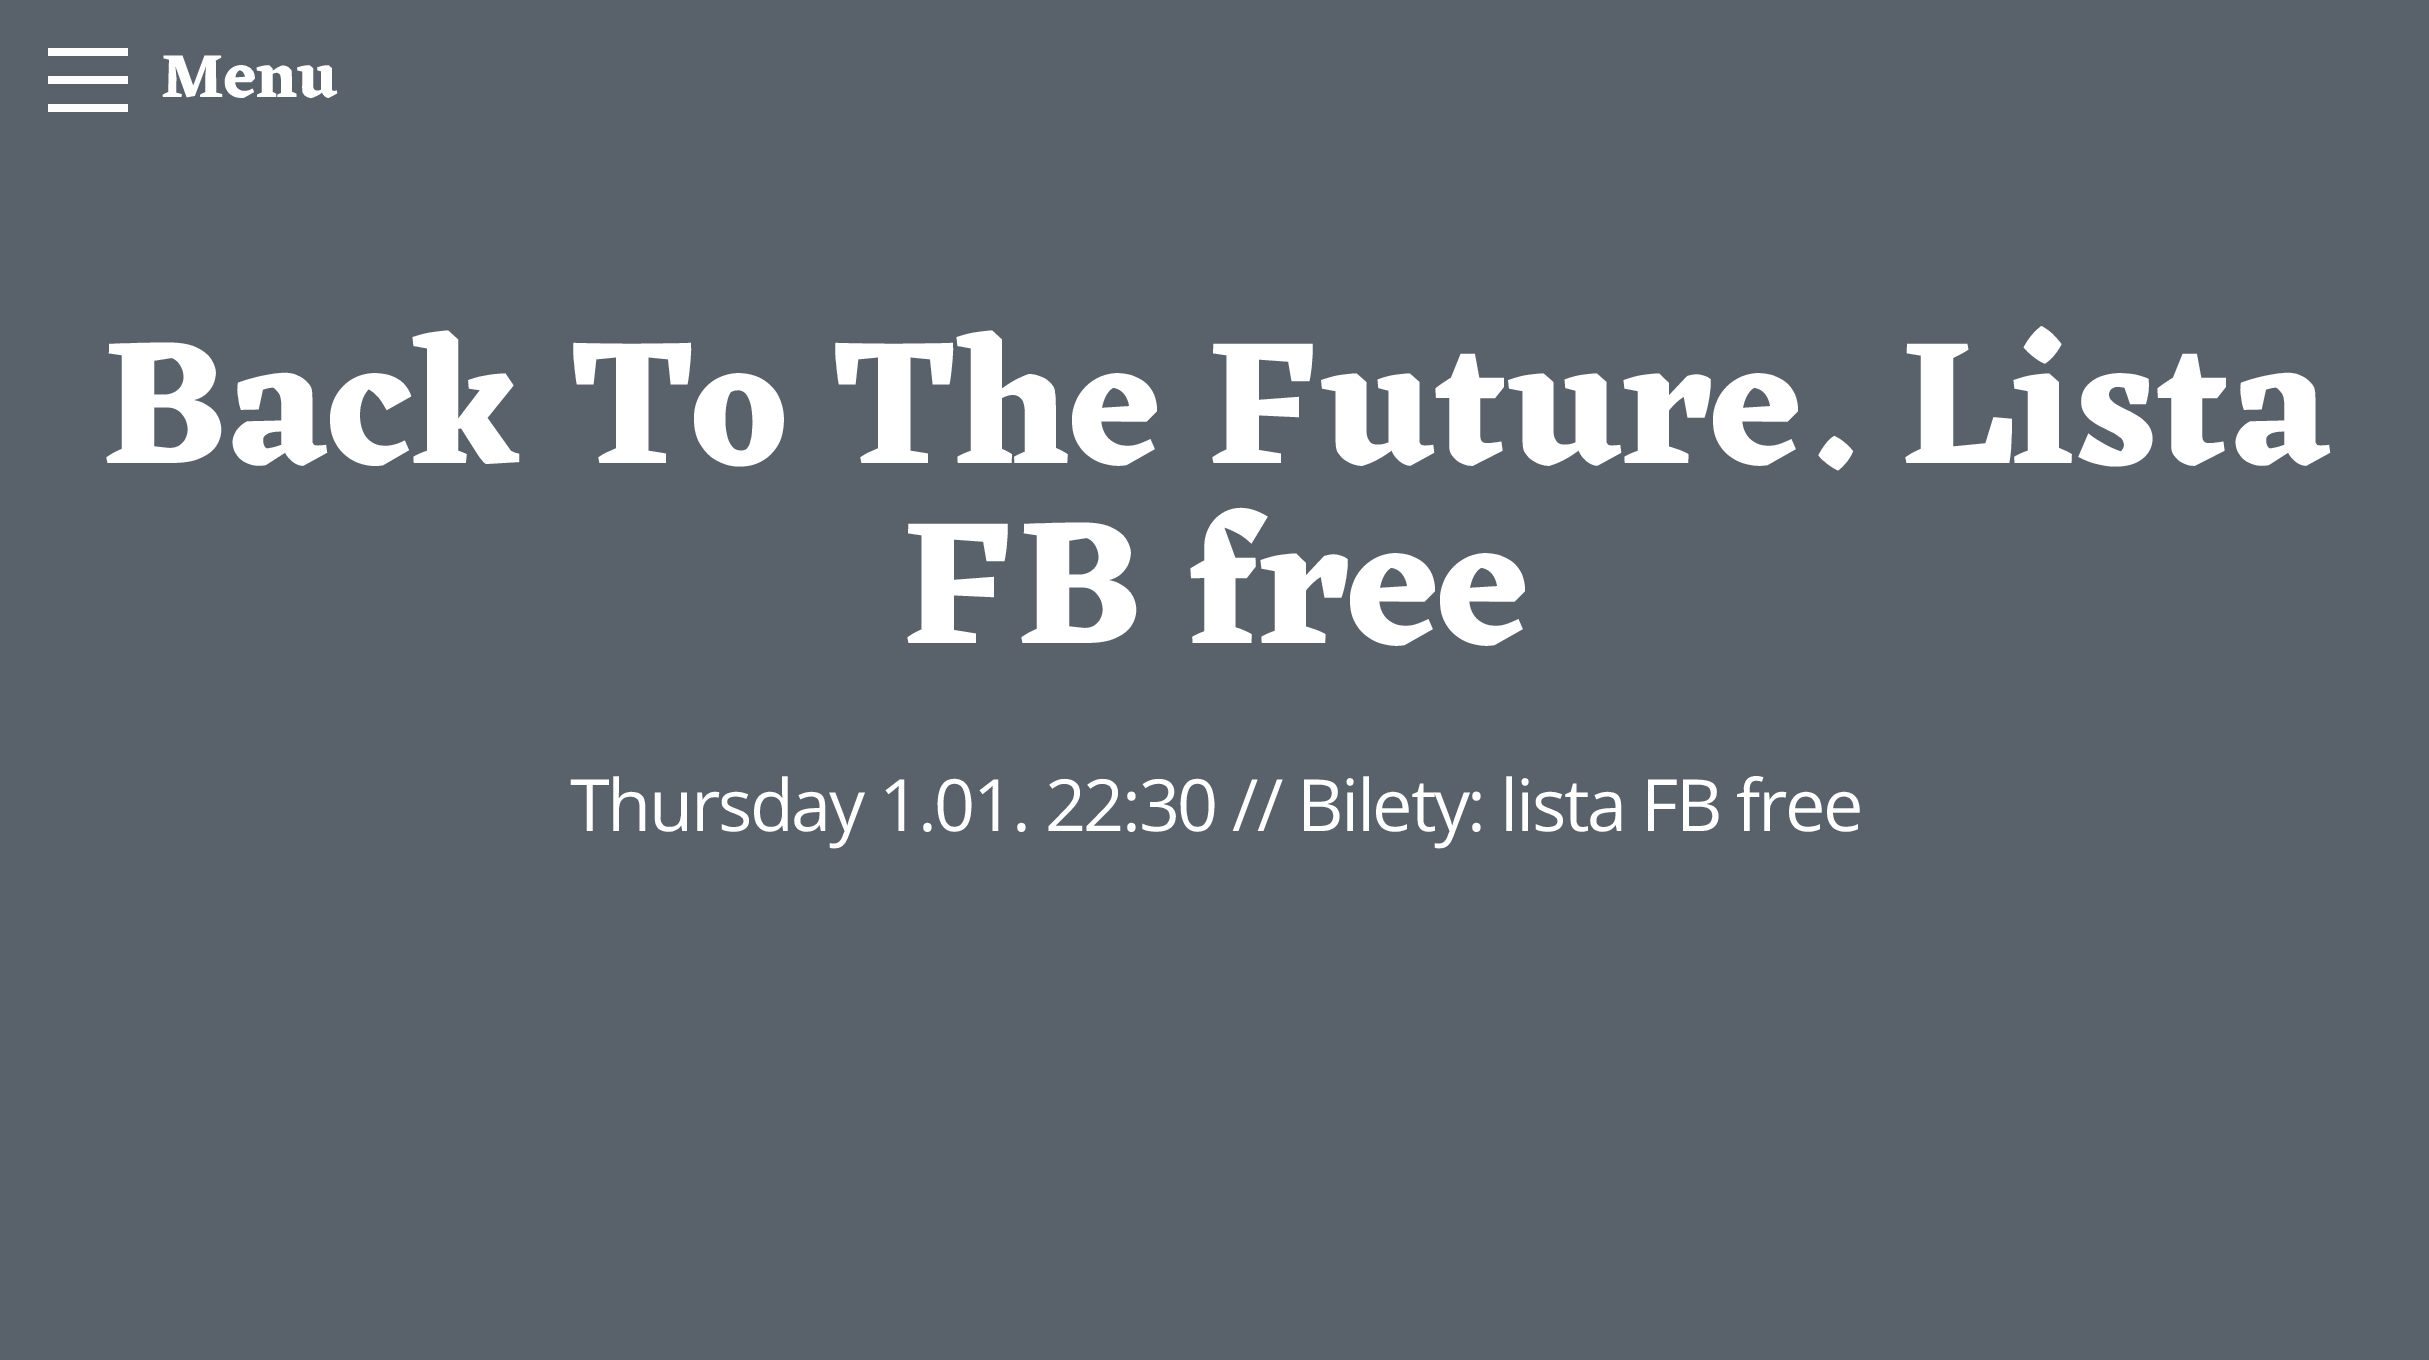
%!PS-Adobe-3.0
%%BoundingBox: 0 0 2429 1360
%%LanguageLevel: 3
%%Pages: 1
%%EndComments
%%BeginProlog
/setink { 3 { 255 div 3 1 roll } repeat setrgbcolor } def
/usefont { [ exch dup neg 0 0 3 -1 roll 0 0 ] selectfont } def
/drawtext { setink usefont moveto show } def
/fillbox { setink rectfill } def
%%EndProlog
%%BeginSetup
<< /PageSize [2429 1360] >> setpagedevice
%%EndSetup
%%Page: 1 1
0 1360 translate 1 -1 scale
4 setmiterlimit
0 0 2429 1360 89 97 107 fillbox
48 104 80 8 254 254 254 fillbox
48 76 80 8 254 254 254 fillbox
48 48 80 8 254 254 254 fillbox
(Menu) 161 97 /Eczar-Bold 64 255 255 255 drawtext
(Back To The Future. Lista) 102 463 /Eczar-Bold 180 255 255 255 drawtext
(FB free) 903 643 /Eczar-Bold 180 255 255 255 drawtext
/OpenSans-Regular 72 usefont
570 831 moveto -2.4 0 (Thursday 1.01. 22:30 // Bilety: lista FB free) ashow
showpage
%%EOF
